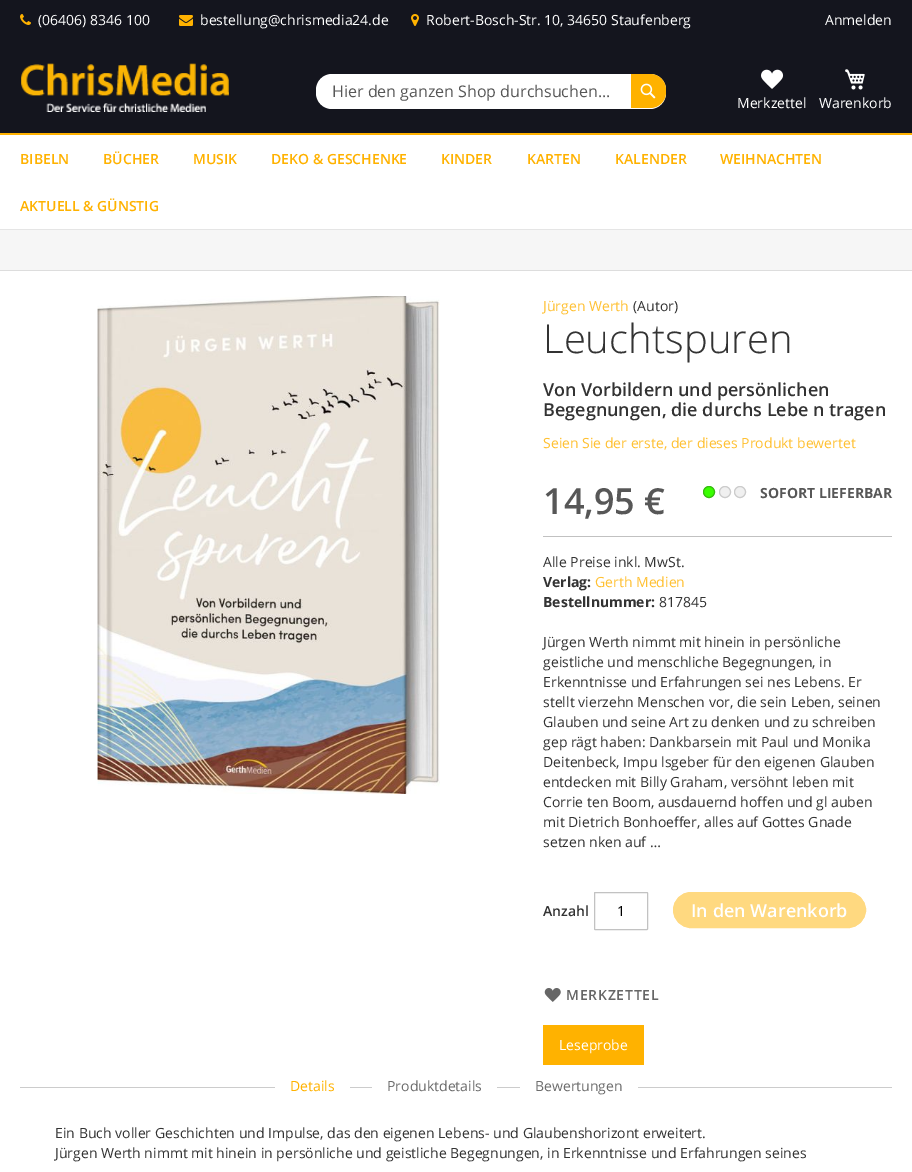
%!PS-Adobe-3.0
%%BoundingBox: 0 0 912 1172
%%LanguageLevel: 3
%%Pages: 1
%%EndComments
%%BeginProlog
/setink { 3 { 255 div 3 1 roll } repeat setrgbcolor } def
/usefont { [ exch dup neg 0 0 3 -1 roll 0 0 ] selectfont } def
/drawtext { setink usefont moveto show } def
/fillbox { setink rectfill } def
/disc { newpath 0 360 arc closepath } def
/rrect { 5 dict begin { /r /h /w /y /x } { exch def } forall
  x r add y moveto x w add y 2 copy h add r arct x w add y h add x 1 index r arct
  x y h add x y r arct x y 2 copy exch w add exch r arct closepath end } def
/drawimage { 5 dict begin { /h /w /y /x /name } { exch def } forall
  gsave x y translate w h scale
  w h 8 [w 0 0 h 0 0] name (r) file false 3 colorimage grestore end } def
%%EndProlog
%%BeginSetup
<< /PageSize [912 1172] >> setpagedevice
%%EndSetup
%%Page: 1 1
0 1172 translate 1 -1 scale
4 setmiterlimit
0 0 912 1172 255 255 255 fillbox
0 0 912 133 20 21 30 fillbox
0 133 912 2 255 178 0 fillbox
(assets/img1.rgb) 20 14 11 11 drawimage
(\(06406\) 8346 100) 38 25 /OpenSans-Regular 14 255 255 255 drawtext
(assets/img2.rgb) 179 15 14 11 drawimage
(bestellung@chrismedia24.de) 200 25 /OpenSans-Regular 14 255 255 255 drawtext
(assets/img3.rgb) 411 14 8 12 drawimage
(Robert-Bosch-Str. 10, 34650 Staufenberg) 426 25 /OpenSans-Regular 14 255 255 255 drawtext
(Anmelden) 825 25 /OpenSans-Regular 14 255 255 255 drawtext
(assets/img4.rgb) 21 63 208 49 drawimage
316 74 350 35 16 rrect fill
(Hier den ganzen Shop durchsuchen...) 332 97 /OpenSans-Regular 16 87 87 87 drawtext
255 178 0 setink
631 74 moveto 650 74 lineto 659 74 666 81 666 90 curveto 666 92 lineto 666 101 659 108 650 108 curveto 631 108 lineto closepath fill
(assets/img5.rgb) 640 83 16 16 drawimage
(assets/img6.rgb) 761 69 23 20 drawimage
(Merkzettel) 737 108 /OpenSans-Regular 14 255 255 255 drawtext
(assets/img7.rgb) 845 69 20 21 drawimage
(Warenkorb) 819 108 /OpenSans-Regular 14 255 255 255 drawtext
0 229 912 1 229 229 229 fillbox
(BIBELN) 20 164 /OpenSans-SemiBold 14 255 178 0 drawtext
(BÜCHER) 103 164 /OpenSans-SemiBold 14 255 178 0 drawtext
(MUSIK) 193 164 /OpenSans-SemiBold 14 255 178 0 drawtext
(DEKO & GESCHENKE) 271 164 /OpenSans-SemiBold 14 255 178 0 drawtext
(KINDER) 441 164 /OpenSans-SemiBold 14 255 178 0 drawtext
(KARTEN) 527 164 /OpenSans-SemiBold 14 255 178 0 drawtext
(KALENDER) 615 164 /OpenSans-SemiBold 14 255 178 0 drawtext
(WEIHNACHTEN) 720 164 /OpenSans-SemiBold 14 255 178 0 drawtext
(AKTUELL & GÜNSTIG) 20 211 /OpenSans-SemiBold 14 255 178 0 drawtext
0 230 912 40 246 246 246 fillbox
0 270 912 1 221 221 221 fillbox
(assets/img8.rgb) 97 296 343 498 drawimage
(Jürgen Werth) 543 311 /OpenSans-Regular 14 255 193 51 drawtext
(\(Autor\)) 633 311 /OpenSans-Regular 14 51 51 51 drawtext
(Leuchtspuren) 543 353 /OpenSans-Light 40 51 51 51 drawtext
(Von Vorbildern und persönlichen) 543 396 /OpenSans-SemiBold 18 51 51 51 drawtext
(Begegnungen, die durchs Lebe n tragen) 543 416 /OpenSans-SemiBold 18 51 51 51 drawtext
(Seien Sie der erste, der dieses Produkt bewertet) 543 448 /OpenSans-Regular 14 255 193 51 drawtext
543 536 349 1 193 193 193 fillbox
(14,95 €) 543 514 /OpenSans-SemiBold 36 87 87 87 drawtext
57 255 0 setink
709 492 5.5 disc gsave fill grestore
56 187 17 setink
stroke
240 240 240 setink
725 492 5.5 disc gsave fill grestore
204 204 204 setink
stroke
240 240 240 setink
740 492 5.5 disc gsave fill grestore
204 204 204 setink
stroke
(SOFORT LIEFERBAR) 760 498 /OpenSans-Bold 14 87 87 87 drawtext
(Alle Preise inkl. MwSt.) 543 567 /OpenSans-Regular 14 51 51 51 drawtext
(Verlag:) 543 587 /OpenSans-Bold 14 51 51 51 drawtext
(Gerth Medien) 595 587 /OpenSans-Regular 14 255 193 51 drawtext
(Bestellnummer:) 543 607 /OpenSans-Bold 14 51 51 51 drawtext
(817845) 659 607 /OpenSans-Regular 14 51 51 51 drawtext
(Jürgen Werth nimmt mit hinein in persönliche) 543 647 /OpenSans-Regular 14 51 51 51 drawtext
(geistliche und menschliche Begegnungen, in) 543 667 /OpenSans-Regular 14 51 51 51 drawtext
(Erkenntnisse und Erfahrungen sei nes Lebens. Er) 543 687 /OpenSans-Regular 14 51 51 51 drawtext
(stellt vierzehn Menschen vor, die sein Leben, seinen) 543 707 /OpenSans-Regular 14 51 51 51 drawtext
(Glauben und seine Art zu denken und zu schreiben) 543 727 /OpenSans-Regular 14 51 51 51 drawtext
(gep rägt haben: Dankbarsein mit Paul und Monika) 543 747 /OpenSans-Regular 14 51 51 51 drawtext
(Deitenbeck, Impu lsgeber für den eigenen Glauben) 543 767 /OpenSans-Regular 14 51 51 51 drawtext
(entdecken mit Billy Graham, versöhnt leben mit) 543 787 /OpenSans-Regular 14 51 51 51 drawtext
(Corrie ten Boom, ausdauernd hoffen und gl auben) 543 807 /OpenSans-Regular 14 51 51 51 drawtext
(mit Dietrich Bonhoeffer, alles auf Gottes Gnade) 543 827 /OpenSans-Regular 14 51 51 51 drawtext
(setzen nken auf …) 543 847 /OpenSans-Regular 14 51 51 51 drawtext
(Anzahl) 543 916 /OpenSans-SemiBold 14 51 51 51 drawtext
194 194 194 setink
594.5 892.5 53 37 0.5 rrect stroke
(1) 617 916 /OpenSans-Regular 14 0 0 0 drawtext
255 217 128 setink
673.5 892.5 192 35 17.5 rrect gsave fill grestore
stroke
(In den Warenkorb) 691 917 /OpenSans-SemiBold 18 255 255 255 drawtext
(assets/img9.rgb) 544 988 17 14 drawimage
/OpenSans-SemiBold 14 usefont
102 102 102 setink
566 1000 moveto 0.75 0 (MERKZETTEL) ashow
543 1025 101 40 255 178 0 fillbox
(Leseprobe) 559 1050 /OpenSans-Regular 14 255 255 255 drawtext
20 1087 872 1 204 204 204 fillbox
275 1087 75 1 255 255 255 fillbox
(Details) 290 1091 /OpenSans-Regular 14 255 178 0 drawtext
372 1087 125 1 255 255 255 fillbox
(Produktdetails) 387 1091 /OpenSans-Regular 14 109 109 109 drawtext
520 1087 118 1 255 255 255 fillbox
(Bewertungen) 535 1091 /OpenSans-Regular 14 109 109 109 drawtext
(Ein Buch voller Geschichten und Impulse, das den eigenen Lebens- und Glaubenshorizont erweitert.) 55 1138 /OpenSans-Regular 14 51 51 51 drawtext
(Jürgen Werth nimmt mit hinein in persönliche und geistliche Begegnungen, in Erkenntnisse und Erfahrungen seines) 55 1158 /OpenSans-Regular 14 51 51 51 drawtext
showpage
%%EOF
